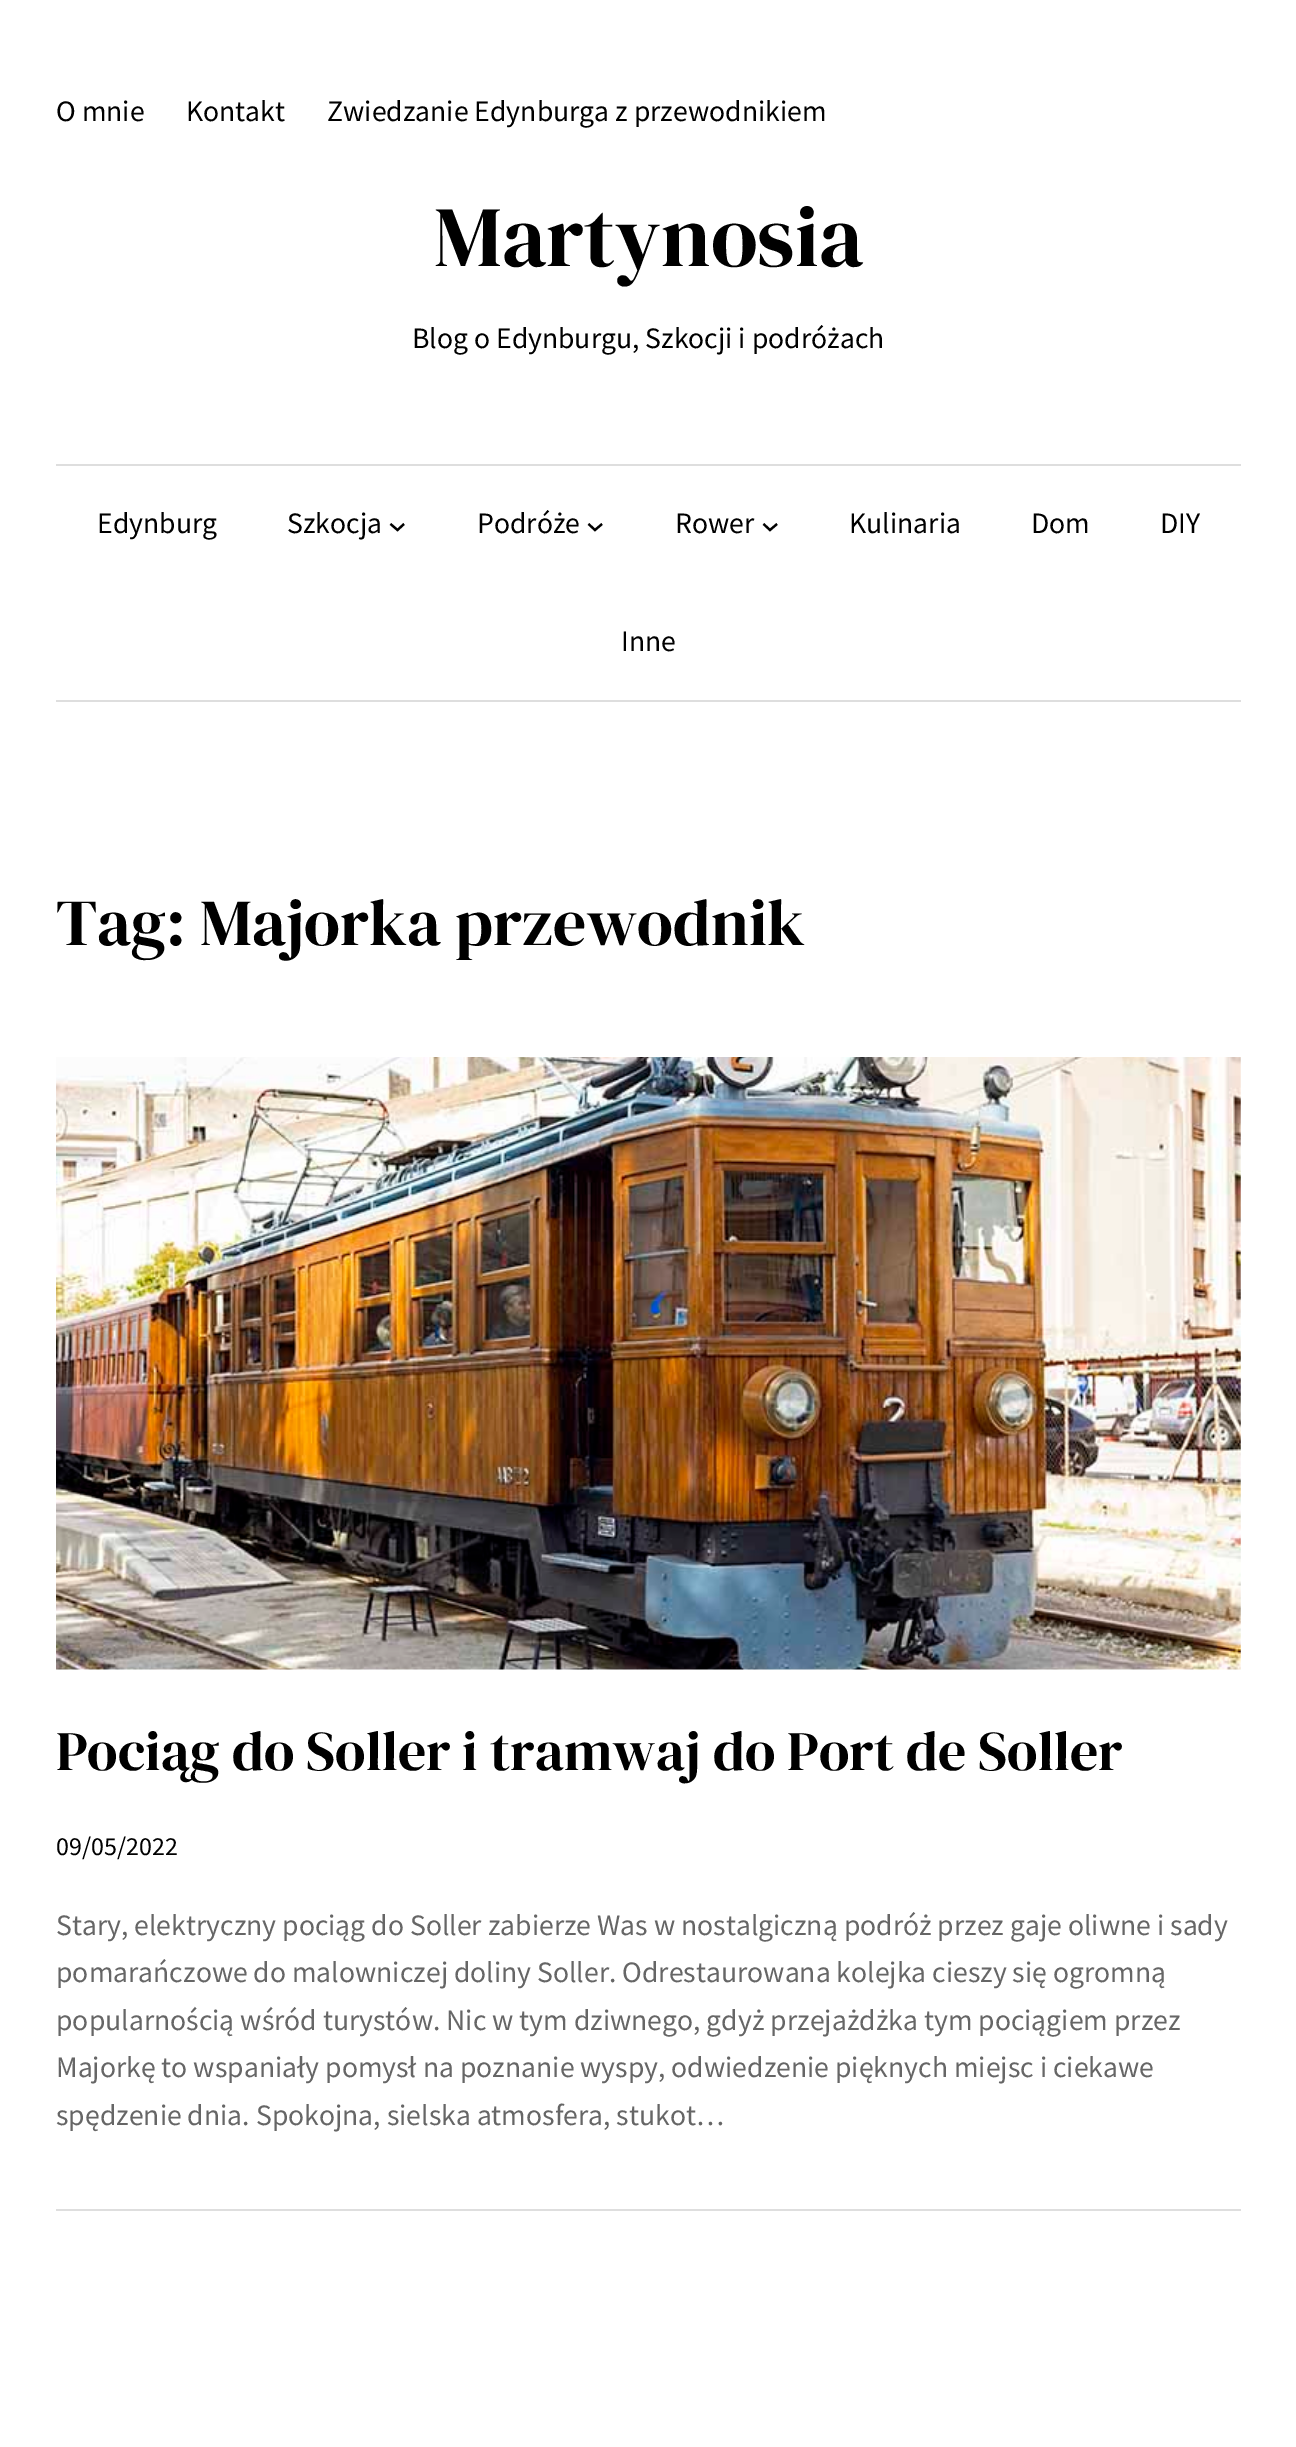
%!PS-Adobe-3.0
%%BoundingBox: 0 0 1296 2447
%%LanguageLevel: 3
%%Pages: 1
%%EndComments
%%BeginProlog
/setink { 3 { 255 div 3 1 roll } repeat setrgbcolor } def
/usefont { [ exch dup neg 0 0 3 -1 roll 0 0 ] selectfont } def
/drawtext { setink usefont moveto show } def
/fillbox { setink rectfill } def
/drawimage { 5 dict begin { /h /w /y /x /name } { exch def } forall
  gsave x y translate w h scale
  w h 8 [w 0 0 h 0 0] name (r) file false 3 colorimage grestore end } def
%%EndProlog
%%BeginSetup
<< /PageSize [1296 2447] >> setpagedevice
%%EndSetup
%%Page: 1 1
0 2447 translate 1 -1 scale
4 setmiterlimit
0 0 1296 2447 255 255 255 fillbox
(O mnie) 56 121 /SourceSansPro-Regular 29.65 0 0 0 drawtext
(Kontakt) 186 121 /SourceSansPro-Regular 29.65 0 0 0 drawtext
(Zwiedzanie Edynburga z przewodnikiem) 327 121 /SourceSansPro-Regular 29.65 0 0 0 drawtext
(Martynosia) 434 266 /DMSerifDisplay-Regular 85.75 0 0 0 drawtext
(Blog o Edynburgu, Szkocji i podróżach) 412 348 /SourceSansPro-Regular 29.65 0 0 0 drawtext
56 464 1185 2 222 222 222 fillbox
56 700 1185 2 222 222 222 fillbox
(Edynburg) 97 533 /SourceSansPro-Regular 29.65 0 0 0 drawtext
(Szkocja) 287 533 /SourceSansPro-Regular 29.65 0 0 0 drawtext
2.2 setlinewidth
390.5 524 moveto 397.5 530 lineto 404 524 lineto stroke
(Podróże) 477 533 /SourceSansPro-Regular 29.65 0 0 0 drawtext
588.5 524 moveto 595 530 lineto 602 524 lineto stroke
(Rower) 675 533 /SourceSansPro-Regular 29.65 0 0 0 drawtext
763.5 524 moveto 770 530 lineto 777 524 lineto stroke
(Kulinaria) 849 533 /SourceSansPro-Regular 29.65 0 0 0 drawtext
(Dom) 1031 533 /SourceSansPro-Regular 29.65 0 0 0 drawtext
(DIY) 1160 533 /SourceSansPro-Regular 29.65 0 0 0 drawtext
(Inne) 621 651 /SourceSansPro-Regular 29.65 0 0 0 drawtext
(Tag: Majorka przewodnik) 56 945 /DMSerifDisplay-Regular 65.6 0 0 0 drawtext
56 2209 1185 2 222 222 222 fillbox
(assets/img1.rgb) 56 1057 1185 613 drawimage
(Pociąg do Soller i tramwaj do Port de Soller) 56 1770 /DMSerifDisplay-Regular 55.75 0 0 0 drawtext
(09/05/2022) 56 1855 /SourceSansPro-Regular 26 0 0 0 drawtext
(Stary, elektryczny pociąg do Soller zabierze Was w nostalgiczną podróż przez gaje oliwne i sady) 56 1935 /SourceSansPro-Regular 29.65 102 102 102 drawtext
56 1982 moveto -0.1 0 32 (pomarańczowe do malowniczej doliny Soller. Odrestaurowana kolejka cieszy się ogromną) widthshow
(popularnością wśród turystów. Nic w tym dziwnego, gdyż przejażdżka tym pociągiem przez) 56 2030 /SourceSansPro-Regular 29.65 102 102 102 drawtext
(Majorkę to wspaniały pomysł na poznanie wyspy, odwiedzenie pięknych miejsc i ciekawe) 56 2077 /SourceSansPro-Regular 29.65 102 102 102 drawtext
(spędzenie dnia. Spokojna, sielska atmosfera, stukot…) 56 2125 /SourceSansPro-Regular 29.65 102 102 102 drawtext
showpage
%%EOF
